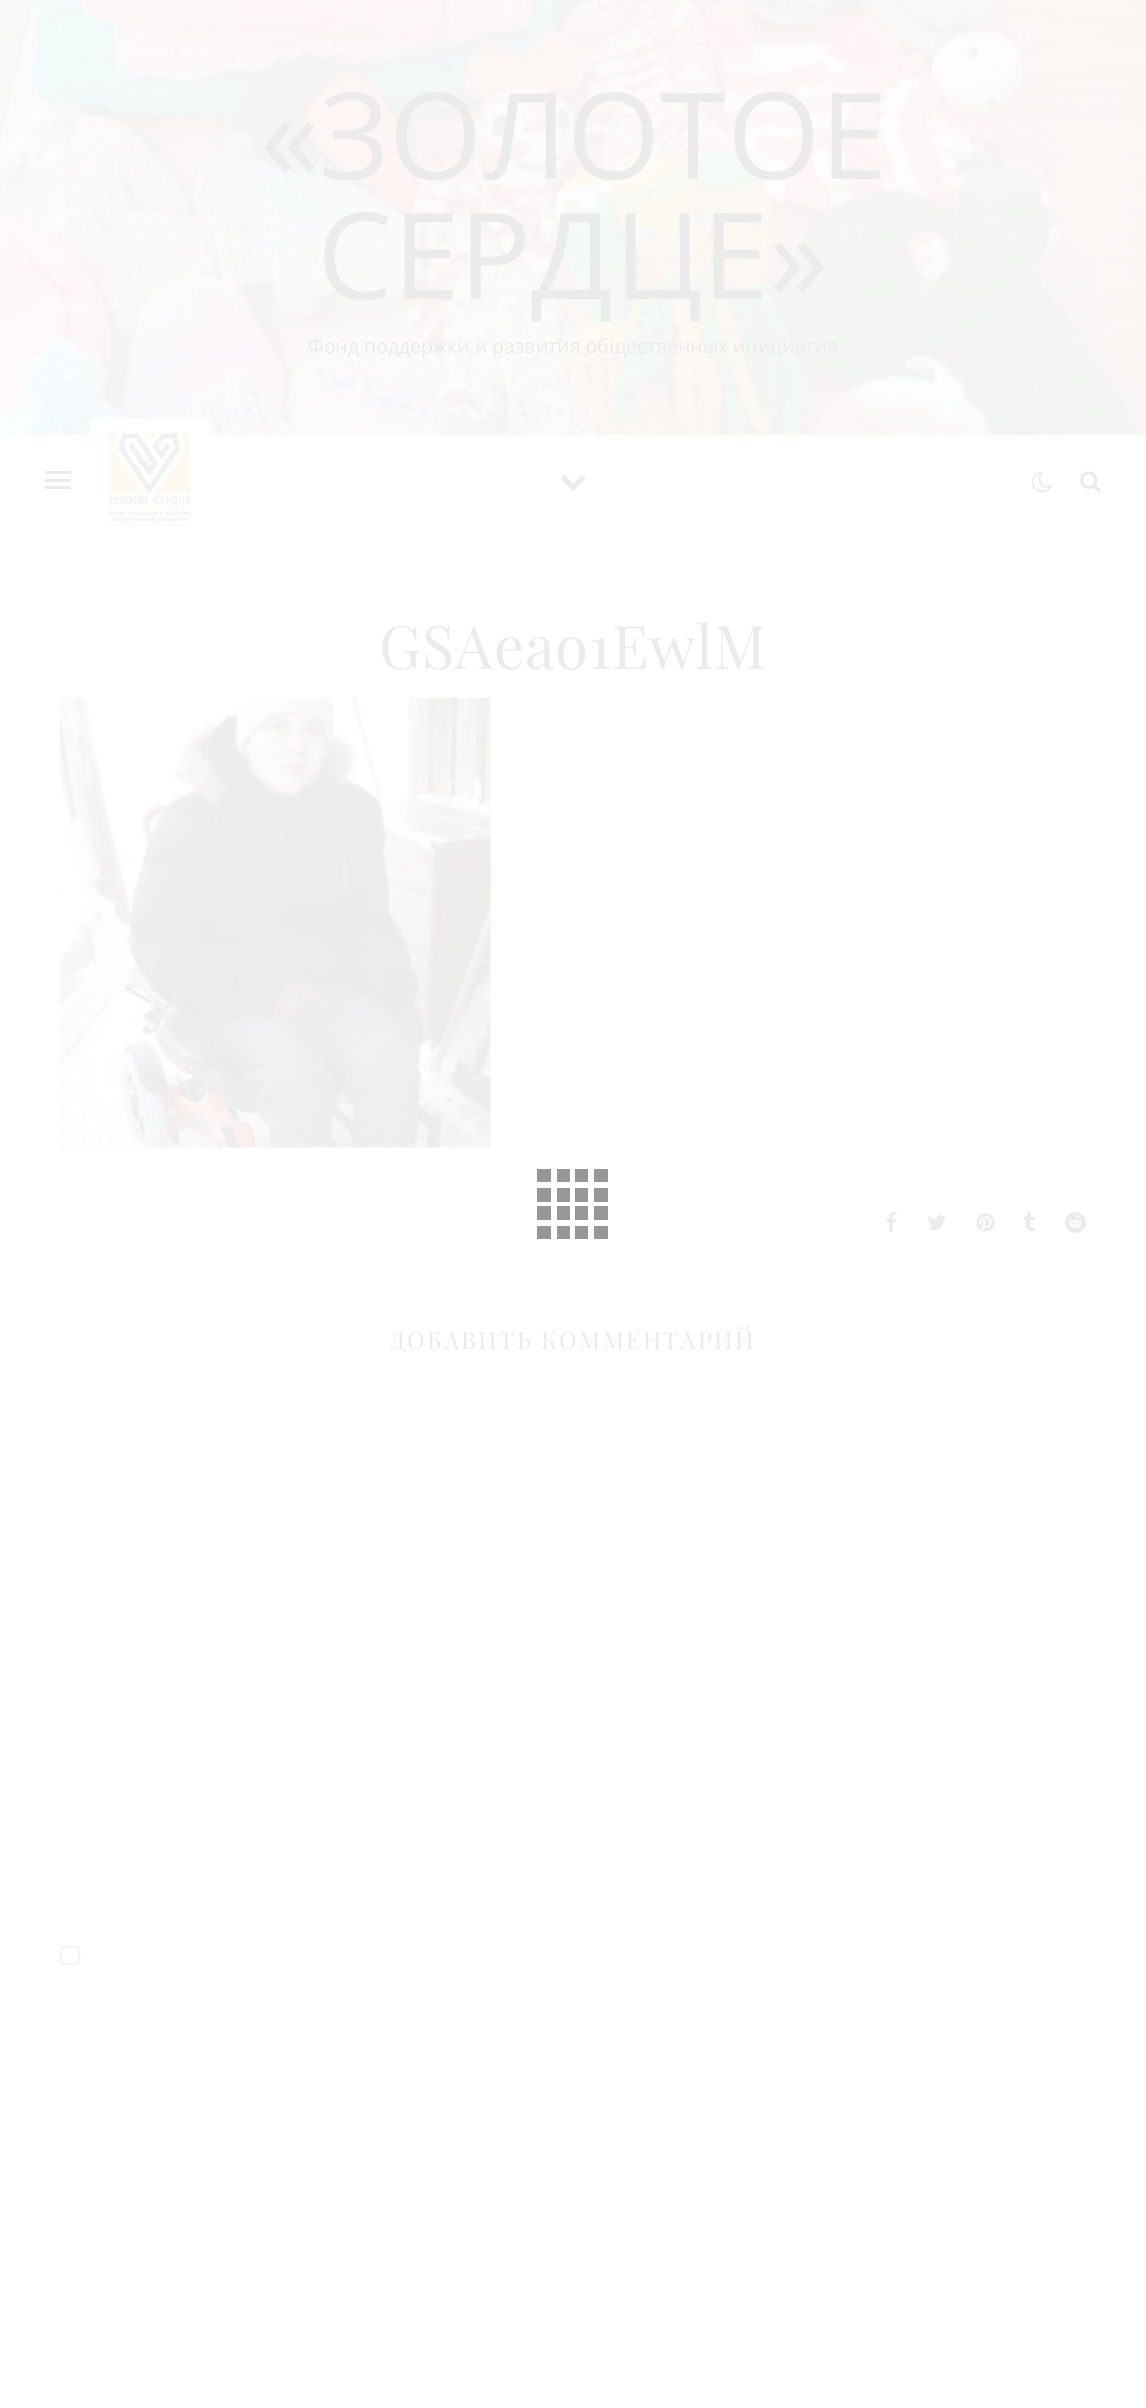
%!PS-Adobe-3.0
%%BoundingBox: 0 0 1146 2408
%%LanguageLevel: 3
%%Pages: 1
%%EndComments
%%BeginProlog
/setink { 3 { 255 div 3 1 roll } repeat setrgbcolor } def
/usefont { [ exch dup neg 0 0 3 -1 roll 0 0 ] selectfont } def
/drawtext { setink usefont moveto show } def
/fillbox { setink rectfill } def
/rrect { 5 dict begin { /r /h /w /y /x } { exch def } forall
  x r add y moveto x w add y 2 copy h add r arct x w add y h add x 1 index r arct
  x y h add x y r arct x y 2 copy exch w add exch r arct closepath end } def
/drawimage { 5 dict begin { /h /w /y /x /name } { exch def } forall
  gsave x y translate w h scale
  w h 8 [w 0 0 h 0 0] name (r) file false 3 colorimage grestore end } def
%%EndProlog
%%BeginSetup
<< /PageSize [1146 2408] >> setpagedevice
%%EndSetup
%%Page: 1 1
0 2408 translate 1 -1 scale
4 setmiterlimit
0 0 1146 2408 255 255 255 fillbox
(assets/img1.rgb) 0 0 1146 435 drawimage
(«ЗОЛОТОЕ) 260 179 /OpenSans-Regular 120 235 235 235 drawtext
(СЕРДЦЕ») 317 299 /OpenSans-Regular 120 235 235 235 drawtext
(Фонд поддержки и развития общественных инициатив) 308 353 /OpenSans-Regular 19.5 235 235 235 drawtext
45 471 26 3 235 235 235 fillbox
45 479 26 3 235 235 235 fillbox
45 486 26 3 235 235 235 fillbox
(assets/img2.rgb) 90 418 120 113 drawimage
(assets/img3.rgb) 560 475 26 16 drawimage
(assets/img4.rgb) 1032 471 20 22 drawimage
(assets/img5.rgb) 1080 471 21 22 drawimage
/PlayfairDisplay-Regular 60 usefont
379 669 moveto 0.75 0 (GSAeao1EwlM) ashow
(assets/img6.rgb) 60 697 431 451 drawimage
(assets/img7.rgb) 886 1212 11 20 drawimage
(assets/img8.rgb) 927 1215 19 15 drawimage
(assets/img9.rgb) 976 1213 19 19 drawimage
(assets/img10.rgb) 1023 1212 12 20 drawimage
(assets/img11.rgb) 1065 1212 21 21 drawimage
/PlayfairDisplay-Regular 24 usefont
390 1349 moveto 2.25 0 (ДОБАВИТЬ КОММЕНТАРИЙ) ashow
244 244 244 setink
2 setlinewidth
61 1947 18 17 2 rrect stroke
537 1169 14 13 151 151 151 fillbox
557 1169 13 13 151 151 151 fillbox
575 1169 13 13 151 151 151 fillbox
594 1169 14 13 151 151 151 fillbox
537 1188 14 14 151 151 151 fillbox
557 1188 13 14 151 151 151 fillbox
575 1188 13 14 151 151 151 fillbox
594 1188 14 14 151 151 151 fillbox
537 1206 14 14 151 151 151 fillbox
557 1206 13 14 151 151 151 fillbox
575 1206 13 14 151 151 151 fillbox
594 1206 14 14 151 151 151 fillbox
537 1226 14 13 151 151 151 fillbox
557 1226 13 13 151 151 151 fillbox
575 1226 13 13 151 151 151 fillbox
594 1226 14 13 151 151 151 fillbox
showpage
%%EOF
